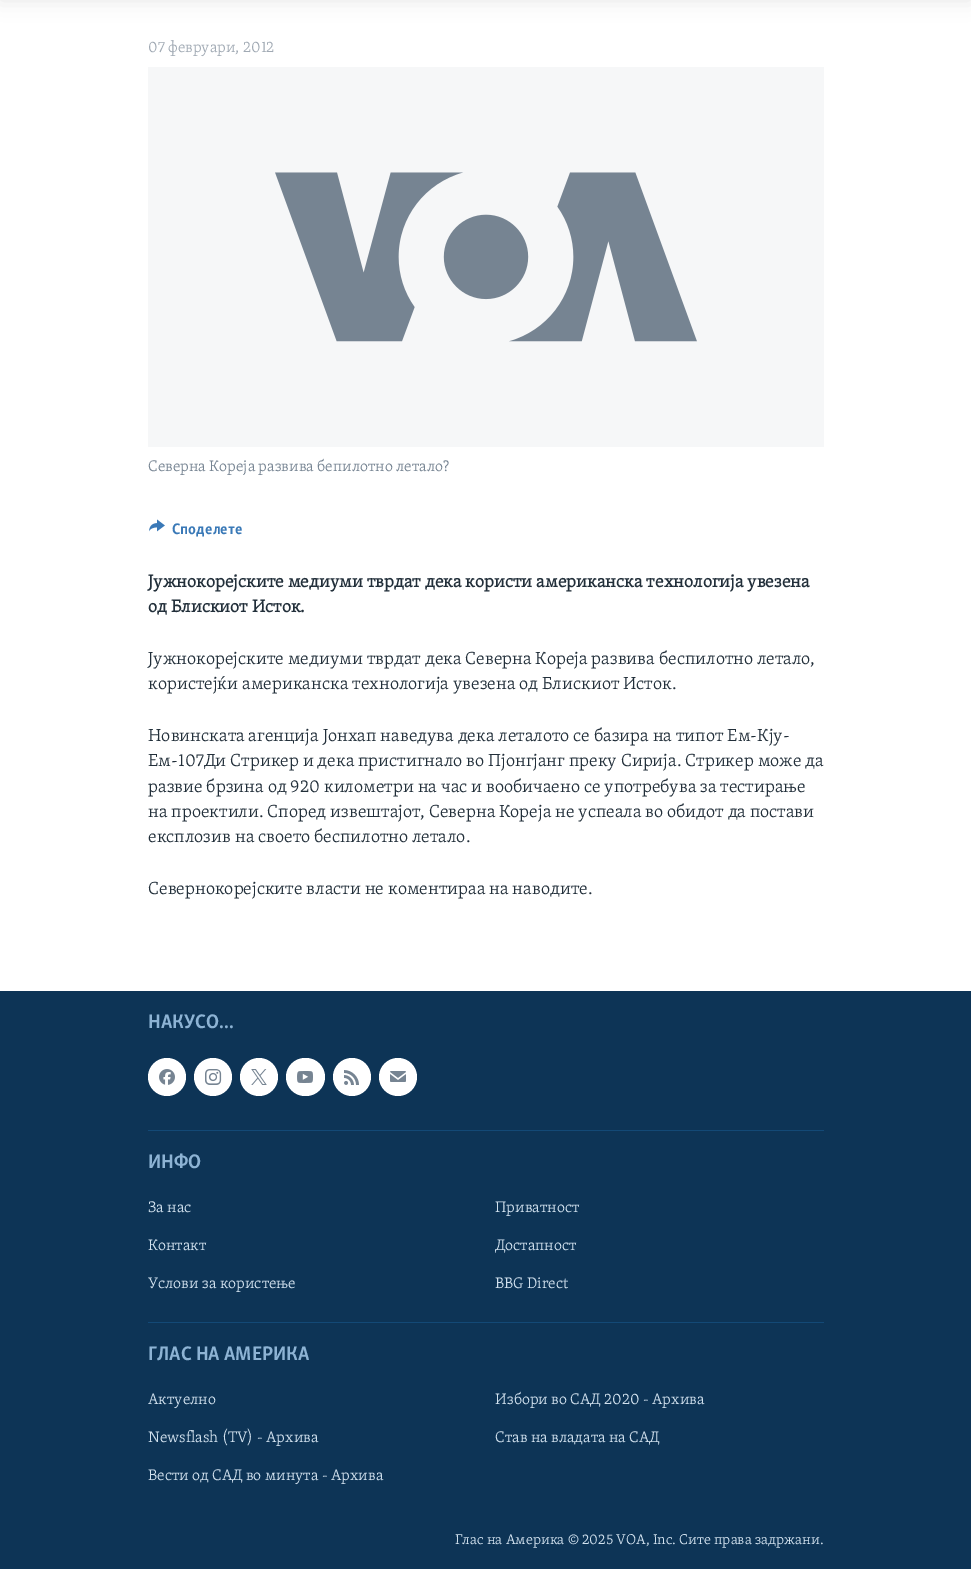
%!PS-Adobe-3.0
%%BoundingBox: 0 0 971 1569
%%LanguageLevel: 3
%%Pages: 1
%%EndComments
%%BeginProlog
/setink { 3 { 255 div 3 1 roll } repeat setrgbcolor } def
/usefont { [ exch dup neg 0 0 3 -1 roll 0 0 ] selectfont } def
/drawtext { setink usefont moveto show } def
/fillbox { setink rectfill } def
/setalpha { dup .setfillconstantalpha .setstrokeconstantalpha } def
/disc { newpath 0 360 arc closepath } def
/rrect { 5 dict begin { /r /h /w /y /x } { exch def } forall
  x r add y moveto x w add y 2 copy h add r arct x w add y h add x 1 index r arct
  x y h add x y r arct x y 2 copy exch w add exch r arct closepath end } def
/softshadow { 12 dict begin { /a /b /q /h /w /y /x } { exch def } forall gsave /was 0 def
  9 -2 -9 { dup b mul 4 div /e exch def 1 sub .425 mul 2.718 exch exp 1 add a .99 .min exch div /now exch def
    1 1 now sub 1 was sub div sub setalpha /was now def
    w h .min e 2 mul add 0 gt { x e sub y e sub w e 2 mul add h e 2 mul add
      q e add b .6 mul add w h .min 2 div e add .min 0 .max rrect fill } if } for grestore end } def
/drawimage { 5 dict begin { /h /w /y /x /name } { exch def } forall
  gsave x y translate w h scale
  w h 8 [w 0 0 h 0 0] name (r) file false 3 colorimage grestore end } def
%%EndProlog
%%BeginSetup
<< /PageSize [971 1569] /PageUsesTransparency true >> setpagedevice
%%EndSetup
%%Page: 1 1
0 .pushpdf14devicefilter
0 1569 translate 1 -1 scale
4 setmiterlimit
0 0 971 1569 255 255 255 fillbox
0 0 0 setink
0 -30 971 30 0 10 0.1 softshadow
(07 февруари, 2012) 148 52 /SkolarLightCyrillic-Light 15.75 161 170 180 drawtext
148 67 676 380 246 247 248 fillbox
(assets/img1.rgb) 275 172 422 170 drawimage
(Северна Кореја развива бепилотно летало?) 148 471 /SkolarLightCyrillic-Light 15.75 118 132 146 drawtext
(assets/img2.rgb) 149 519 16 13 drawimage
(Споделете) 172 534 /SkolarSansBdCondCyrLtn-Bold 15.75 58 121 183 drawtext
(Јужнокорејските медиуми тврдат дека користи американска технологија увезена) 148 587 /SkolarLightCyrillic-Bold 18 34 47 58 drawtext
(од Блискиот Исток.) 148 612 /SkolarLightCyrillic-Bold 18 34 47 58 drawtext
(Јужнокорејските медиуми тврдат дека Северна Кореја развива беспилотно летало,) 148 664 /SkolarLightCyrillic-Light 18 34 47 58 drawtext
(користејќи американска технологија увезена од Блискиот Исток.) 148 689 /SkolarLightCyrillic-Light 18 34 47 58 drawtext
(Новинската агенција Јонхап наведува дека леталото се базира на типот Ем-Кју-) 148 741 /SkolarLightCyrillic-Light 18 34 47 58 drawtext
(Ем-107Ди Стрикер и дека пристигнало во Пјонгјанг преку Сирија. Стрикер може да) 148 766 /SkolarLightCyrillic-Light 18 34 47 58 drawtext
(развие брзина од 920 километри на час и вообичаено се употребува за тестирање) 148 792 /SkolarLightCyrillic-Light 18 34 47 58 drawtext
(на проектили. Според извештајот, Северна Кореја не успеала во обидот да постави) 148 817 /SkolarLightCyrillic-Light 18 34 47 58 drawtext
(експлозив на своето беспилотно летало.) 148 842 /SkolarLightCyrillic-Light 18 34 47 58 drawtext
(Севернокорејските власти не коментираа на наводите.) 148 894 /SkolarLightCyrillic-Light 18 34 47 58 drawtext
0 991 971 578 13 52 86 fillbox
(НАКУСО...) 148 1028 /SkolarSansBdCondCyrLtn-Bold 20.25 141 179 212 drawtext
255 255 255 setink
167 1077 19 disc fill
(assets/img3.rgb) 159 1069 16 16 drawimage
213 1077 19 disc fill
(assets/img4.rgb) 205 1069 17 16 drawimage
259 1077 19 disc fill
(assets/img5.rgb) 251 1069 16 16 drawimage
286 1058 39 38 19 rrect fill
(assets/img6.rgb) 297 1071 16 12 drawimage
352 1077 19 disc fill
(assets/img7.rgb) 344 1070 15 15 drawimage
398 1077 19 disc fill
(assets/img8.rgb) 390 1071 16 11 drawimage
148 1130 676 1 19 73 118 fillbox
(ИНФО) 148 1168 /SkolarSansBdCondCyrLtn-Bold 20.25 141 179 212 drawtext
(За нас) 148 1212 /SkolarLightCyrillic-Light 15.75 209 225 238 drawtext
(Приватност) 495 1212 /SkolarLightCyrillic-Light 15.75 209 225 238 drawtext
(Контакт) 148 1250 /SkolarLightCyrillic-Light 15.75 209 225 238 drawtext
(Достапност) 495 1250 /SkolarLightCyrillic-Light 15.75 209 225 238 drawtext
(Услови за користење) 148 1288 /SkolarLightCyrillic-Light 15.75 209 225 238 drawtext
(BBG Direct) 495 1288 /SkolarLightCyrillic-Light 15.75 209 225 238 drawtext
148 1322 676 1 19 73 118 fillbox
(ГЛАС НА АМЕРИКА) 148 1360 /SkolarSansBdCondCyrLtn-Bold 20.25 141 179 212 drawtext
(Актуелно) 148 1404 /SkolarLightCyrillic-Light 15.75 209 225 238 drawtext
(Избори во САД 2020 - Архива) 495 1404 /SkolarLightCyrillic-Light 15.75 209 225 238 drawtext
(Newsflash \(TV\) - Архива) 148 1442 /SkolarLightCyrillic-Light 15.75 209 225 238 drawtext
(Став на владата на САД) 495 1442 /SkolarLightCyrillic-Light 15.75 209 225 238 drawtext
(Вести од САД во минута - Архива) 148 1480 /SkolarLightCyrillic-Light 15.75 209 225 238 drawtext
(Глас на Америка © 2025 VOA, Inc. Сите права задржани.) 455 1544 /SkolarLightCyrillic-Light 14.6 209 225 238 drawtext
.poppdf14devicefilter showpage
%%EOF
